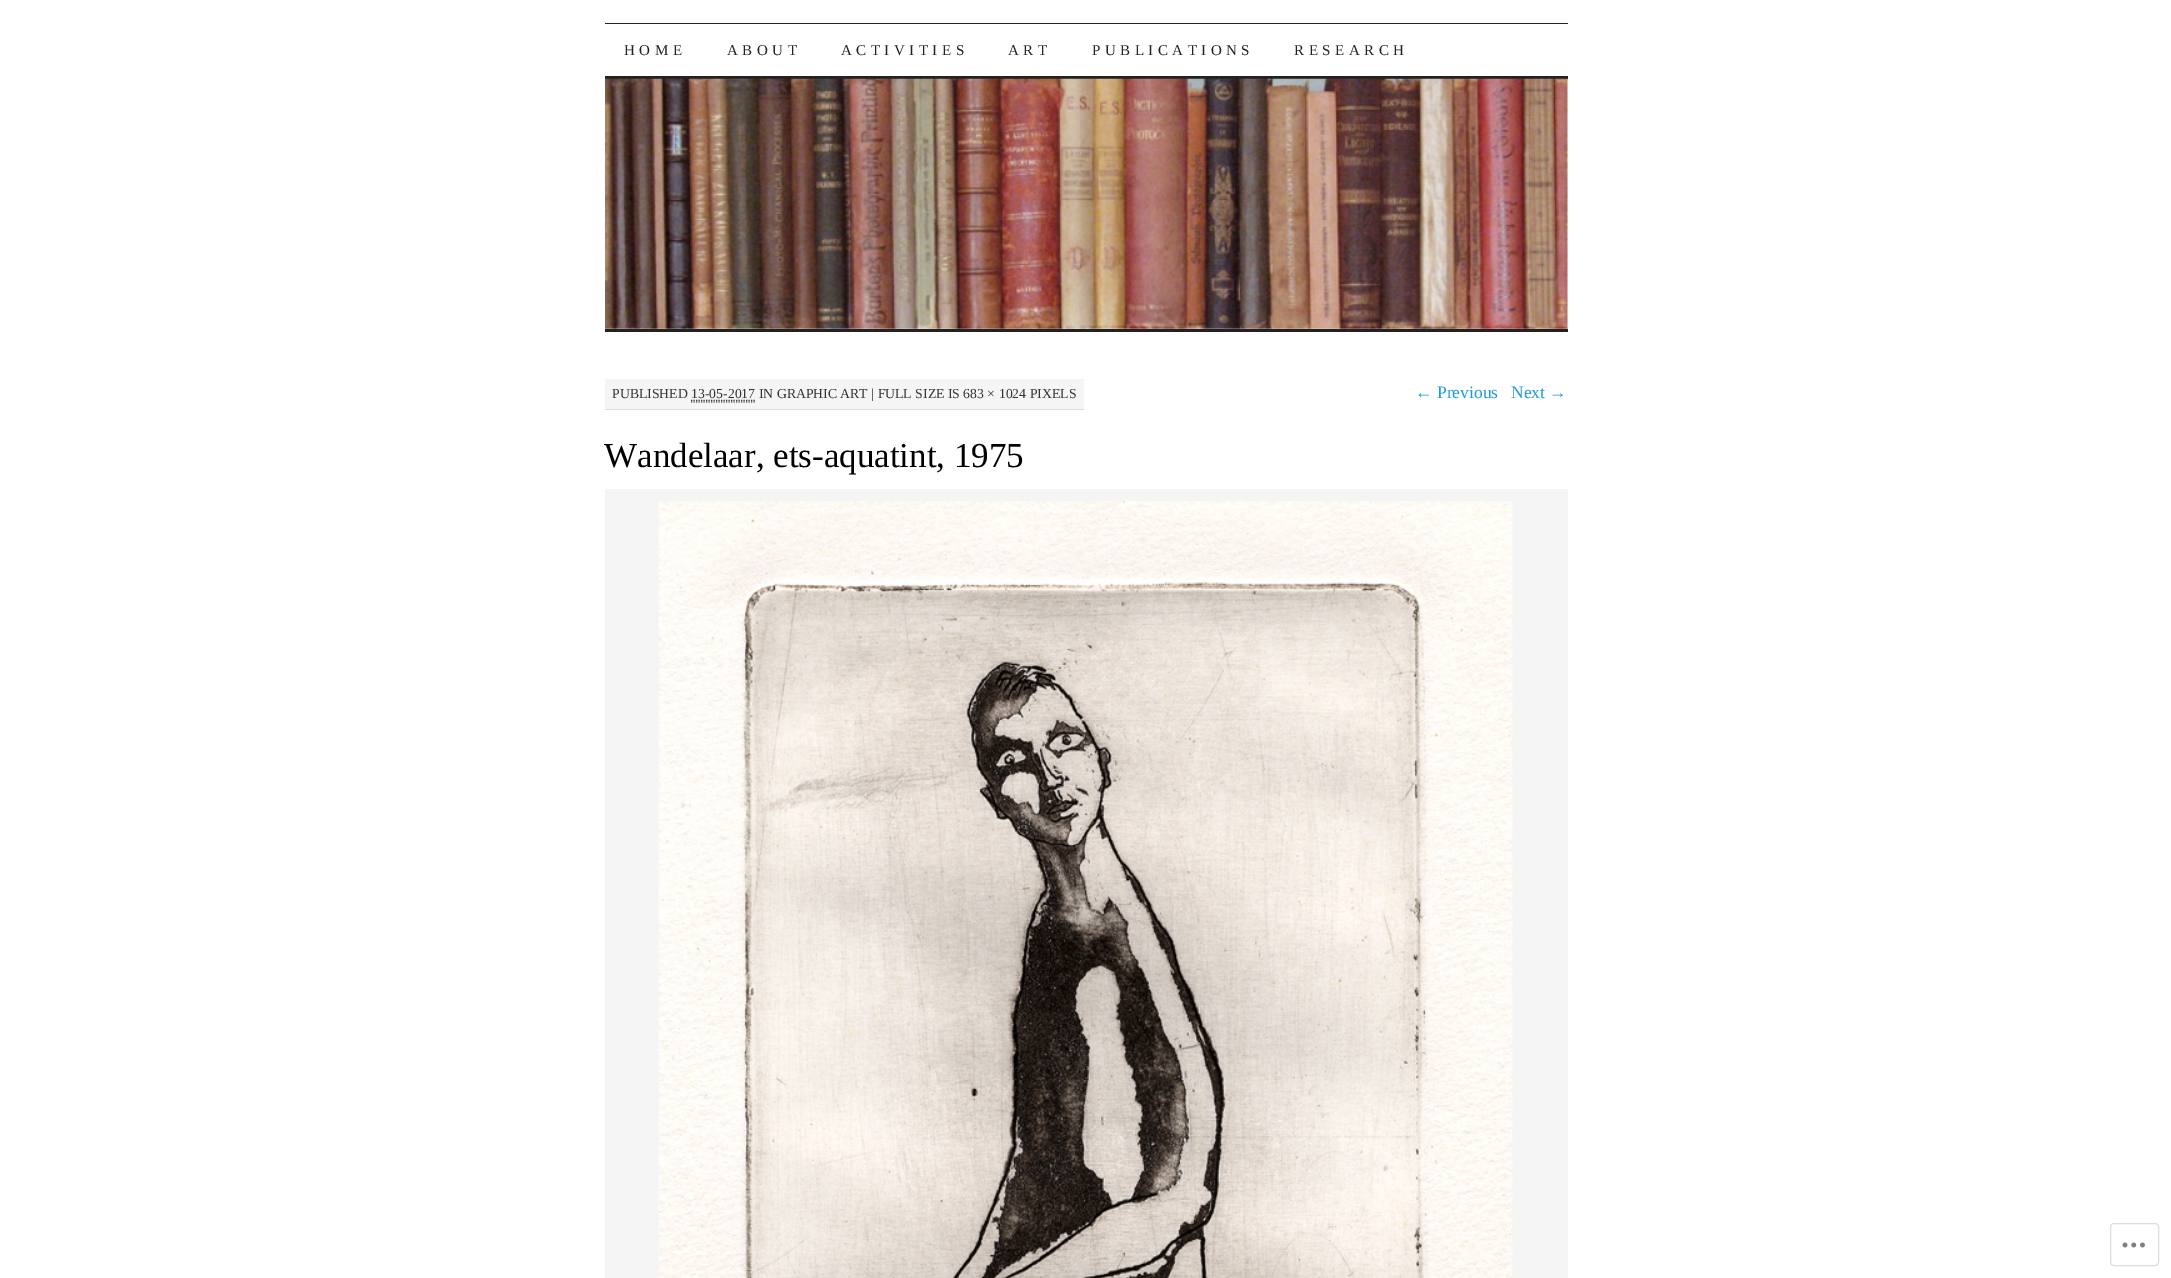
%!PS-Adobe-3.0
%%BoundingBox: 0 0 2171 1278
%%LanguageLevel: 3
%%Pages: 1
%%EndComments
%%BeginProlog
/setink { 3 { 255 div 3 1 roll } repeat setrgbcolor } def
/usefont { [ exch dup neg 0 0 3 -1 roll 0 0 ] selectfont } def
/drawtext { setink usefont moveto show } def
/fillbox { setink rectfill } def
/rrect { 5 dict begin { /r /h /w /y /x } { exch def } forall
  x r add y moveto x w add y 2 copy h add r arct x w add y h add x 1 index r arct
  x y h add x y r arct x y 2 copy exch w add exch r arct closepath end } def
/drawimage { 5 dict begin { /h /w /y /x /name } { exch def } forall
  gsave x y translate w h scale
  w h 8 [w 0 0 h 0 0] name (r) file false 3 colorimage grestore end } def
%%EndProlog
%%BeginSetup
<< /PageSize [2171 1278] >> setpagedevice
%%EndSetup
%%Page: 1 1
0 1278 translate 1 -1 scale
4 setmiterlimit
0 0 2171 1278 255 255 255 fillbox
605 23 963 1 34 34 34 fillbox
605 76 963 3 34 34 34 fillbox
/LiberationSerif-Regular 15 usefont
624 55 moveto 4.5 0 (HOME) ashow
727 55 moveto 4.5 0 (ABOUT) ashow
841 55 moveto 4.5 0 (ACTIVITIES) ashow
1008 55 moveto 4.5 0 (ART) ashow
1092 55 moveto 4.5 0 (PUBLICATIONS) ashow
1294 55 moveto 4.5 0 (RESEARCH) ashow
(assets/img1.rgb) 605 78 963 251 drawimage
605 329 963 3 34 34 34 fillbox
605 379 479 30 245 245 245 fillbox
605 409 479 1 221 221 221 fillbox
(PUBLISHED 13-05-2017 IN GRAPHIC ART | FULL SIZE IS 683 × 1024 PIXELS) 612 398 /LiberationSerif-Regular 13.75 51 51 51 drawtext
102 102 102 setink
1.2 setlinewidth
[1.25 1.25] 0 setdash
691 402 moveto 755 402 lineto stroke
51 51 51 setink
691 400.5 moveto 755 400.5 lineto stroke
(← Previous) 1415 398 /LiberationSerif-Regular 17.5 28 155 220 drawtext
(Next →) 1511 398 /LiberationSerif-Regular 17.5 28 155 220 drawtext
(Wandelaar, ets-aquatint, 1975) 604 467 /LiberationSerif-Regular 35 0 0 0 drawtext
605 489 963 789 245 245 245 fillbox
(assets/img2.rgb) 658 501 855 777 drawimage
221 221 223 setink
1 setlinewidth
[] 0 setdash
2110.5 1223.5 48 42 3.5 rrect stroke
(assets/img3.rgb) 2122 1242 23 6 drawimage
showpage
%%EOF
